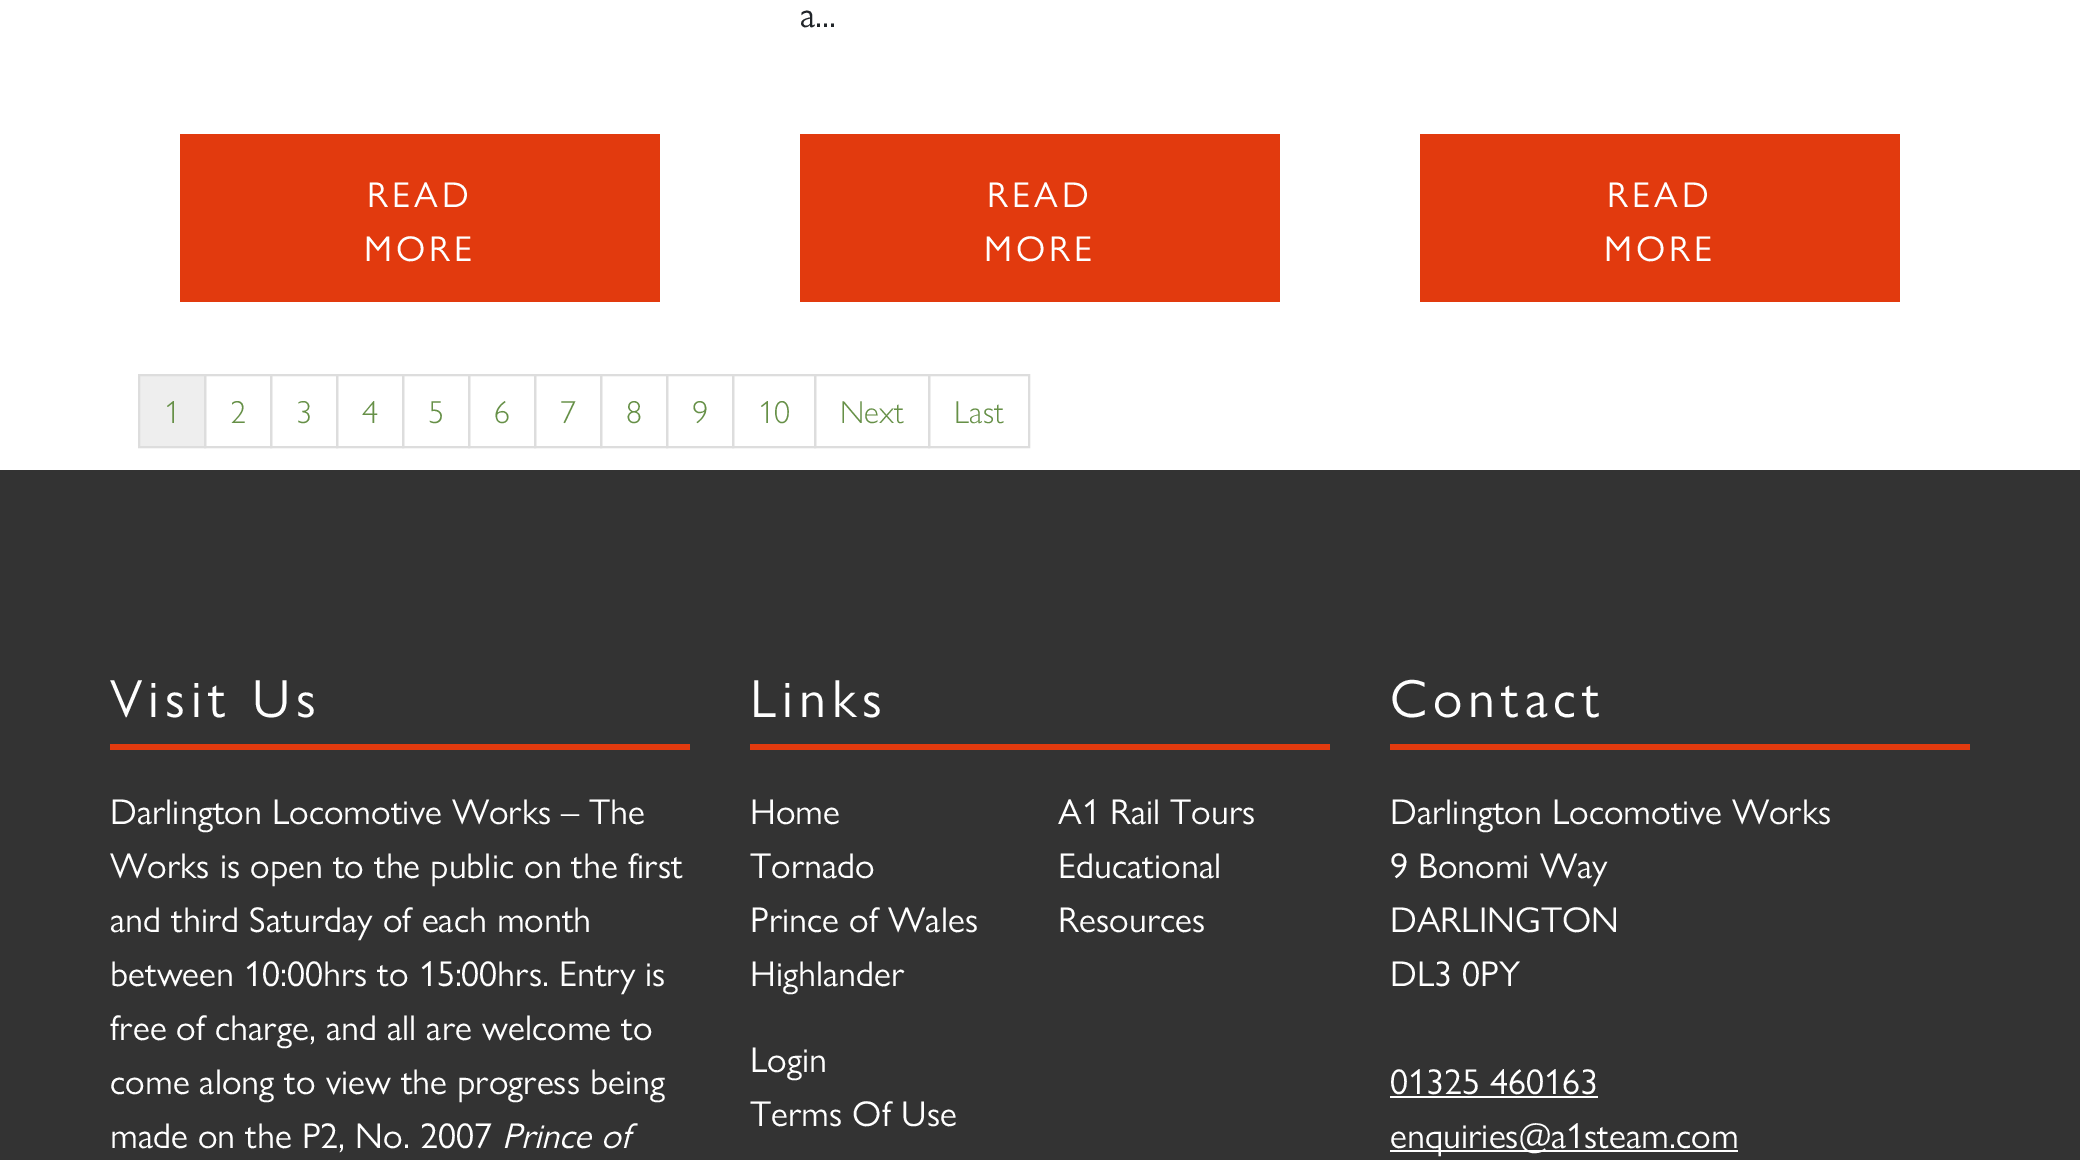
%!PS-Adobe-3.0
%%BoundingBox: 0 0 2080 1160
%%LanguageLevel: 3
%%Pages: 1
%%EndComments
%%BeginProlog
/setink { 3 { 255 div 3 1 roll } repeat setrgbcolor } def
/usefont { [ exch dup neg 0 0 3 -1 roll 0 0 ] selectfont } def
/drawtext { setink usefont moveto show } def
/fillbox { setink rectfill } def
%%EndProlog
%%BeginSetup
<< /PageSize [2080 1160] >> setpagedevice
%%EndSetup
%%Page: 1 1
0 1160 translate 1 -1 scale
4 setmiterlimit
0 0 2080 1160 255 255 255 fillbox
180 134 480 168 226 58 14 fillbox
/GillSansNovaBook-Regular 36 usefont
255 255 255 setink
367 207 moveto 4 0 (READ) ashow
364 261 moveto 4 0 (MORE) ashow
(a...) 800 27 /GillSansNovaBook-Regular 36 33 37 41 drawtext
800 134 480 168 226 58 14 fillbox
255 255 255 setink
987 207 moveto 4 0 (READ) ashow
984 261 moveto 4 0 (MORE) ashow
1420 134 480 168 226 58 14 fillbox
255 255 255 setink
1607 207 moveto 4 0 (READ) ashow
1604 261 moveto 4 0 (MORE) ashow
238 238 238 setink
139 375 moveto 205 375 lineto 205 447 lineto 139 447 lineto closepath gsave fill grestore
221 221 221 setink
2 setlinewidth
stroke
(1) 164 423 /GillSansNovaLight-Light 32 102 144 71 drawtext
221 221 221 setink
205 375 66 72 rectstroke
(2) 230 423 /GillSansNovaLight-Light 32 102 144 71 drawtext
221 221 221 setink
271 375 66 72 rectstroke
(3) 296 423 /GillSansNovaLight-Light 32 102 144 71 drawtext
221 221 221 setink
337 375 66 72 rectstroke
(4) 362 423 /GillSansNovaLight-Light 32 102 144 71 drawtext
221 221 221 setink
403 375 66 72 rectstroke
(5) 428 423 /GillSansNovaLight-Light 32 102 144 71 drawtext
221 221 221 setink
469 375 66 72 rectstroke
(6) 494 423 /GillSansNovaLight-Light 32 102 144 71 drawtext
221 221 221 setink
535 375 66 72 rectstroke
(7) 560 423 /GillSansNovaLight-Light 32 102 144 71 drawtext
221 221 221 setink
601 375 66 72 rectstroke
(8) 626 423 /GillSansNovaLight-Light 32 102 144 71 drawtext
221 221 221 setink
667 375 66 72 rectstroke
(9) 692 423 /GillSansNovaLight-Light 32 102 144 71 drawtext
221 221 221 setink
733 375 82 72 rectstroke
(10) 758 423 /GillSansNovaLight-Light 32 102 144 71 drawtext
221 221 221 setink
815 375 114 72 rectstroke
(Next) 840 423 /GillSansNovaLight-Light 32 102 144 71 drawtext
221 221 221 setink
929 375 100 72 rectstroke
(Last) 954 423 /GillSansNovaLight-Light 32 102 144 71 drawtext
0 470 2080 690 51 51 51 fillbox
/GillSansNovaBook-Regular 54 usefont
255 255 255 setink
110 717 moveto 6 0 (Visit Us) ashow
110 744 580 6 226 58 14 fillbox
(Darlington Locomotive Works – The) 110 824 /GillSansNovaBook-Regular 36 255 255 255 drawtext
(Works is open to the public on the first) 110 878 /GillSansNovaBook-Regular 36 255 255 255 drawtext
(and third Saturday of each month) 110 932 /GillSansNovaBook-Regular 36 255 255 255 drawtext
(between 10:00hrs to 15:00hrs. Entry is) 110 986 /GillSansNovaBook-Regular 36 255 255 255 drawtext
(free of charge, and all are welcome to) 110 1040 /GillSansNovaBook-Regular 36 255 255 255 drawtext
(come along to view the progress being) 110 1094 /GillSansNovaBook-Regular 36 255 255 255 drawtext
(made on the P2, No. 2007) 110 1148 /GillSansNovaBook-Regular 36 255 255 255 drawtext
(Prince of) 502 1148 /GillSansNovaBook-Italic 36 255 255 255 drawtext
/GillSansNovaBook-Regular 54 usefont
750 717 moveto 6 0 (Links) ashow
750 744 580 6 226 58 14 fillbox
(Home) 750 824 /GillSansNovaBook-Regular 36 255 255 255 drawtext
(A1 Rail Tours) 1058 824 /GillSansNovaBook-Regular 36 255 255 255 drawtext
(Tornado) 750 878 /GillSansNovaBook-Regular 36 255 255 255 drawtext
(Educational) 1058 878 /GillSansNovaBook-Regular 36 255 255 255 drawtext
(Resources) 1058 932 /GillSansNovaBook-Regular 36 255 255 255 drawtext
(Prince of Wales) 750 932 /GillSansNovaBook-Regular 36 255 255 255 drawtext
(Highlander) 750 986 /GillSansNovaBook-Regular 36 255 255 255 drawtext
(Login) 750 1072 /GillSansNovaBook-Regular 36 255 255 255 drawtext
(Terms Of Use) 750 1126 /GillSansNovaBook-Regular 36 255 255 255 drawtext
/GillSansNovaBook-Regular 54 usefont
1390 717 moveto 6 0 (Contact) ashow
1390 744 580 6 226 58 14 fillbox
(Darlington Locomotive Works) 1390 824 /GillSansNovaBook-Regular 36 255 255 255 drawtext
(9 Bonomi Way) 1390 878 /GillSansNovaBook-Regular 36 255 255 255 drawtext
(DARLINGTON) 1390 932 /GillSansNovaBook-Regular 36 255 255 255 drawtext
(DL3 0PY) 1390 986 /GillSansNovaBook-Regular 36 255 255 255 drawtext
(01325 460163) 1390 1094 /GillSansNovaBook-Regular 36 255 255 255 drawtext
1390 1096 208 2 255 255 255 fillbox
1390 1150 348 2 255 255 255 fillbox
(enquiries@a1steam.com) 1390 1148 /GillSansNovaBook-Regular 36 255 255 255 drawtext
showpage
%%EOF
